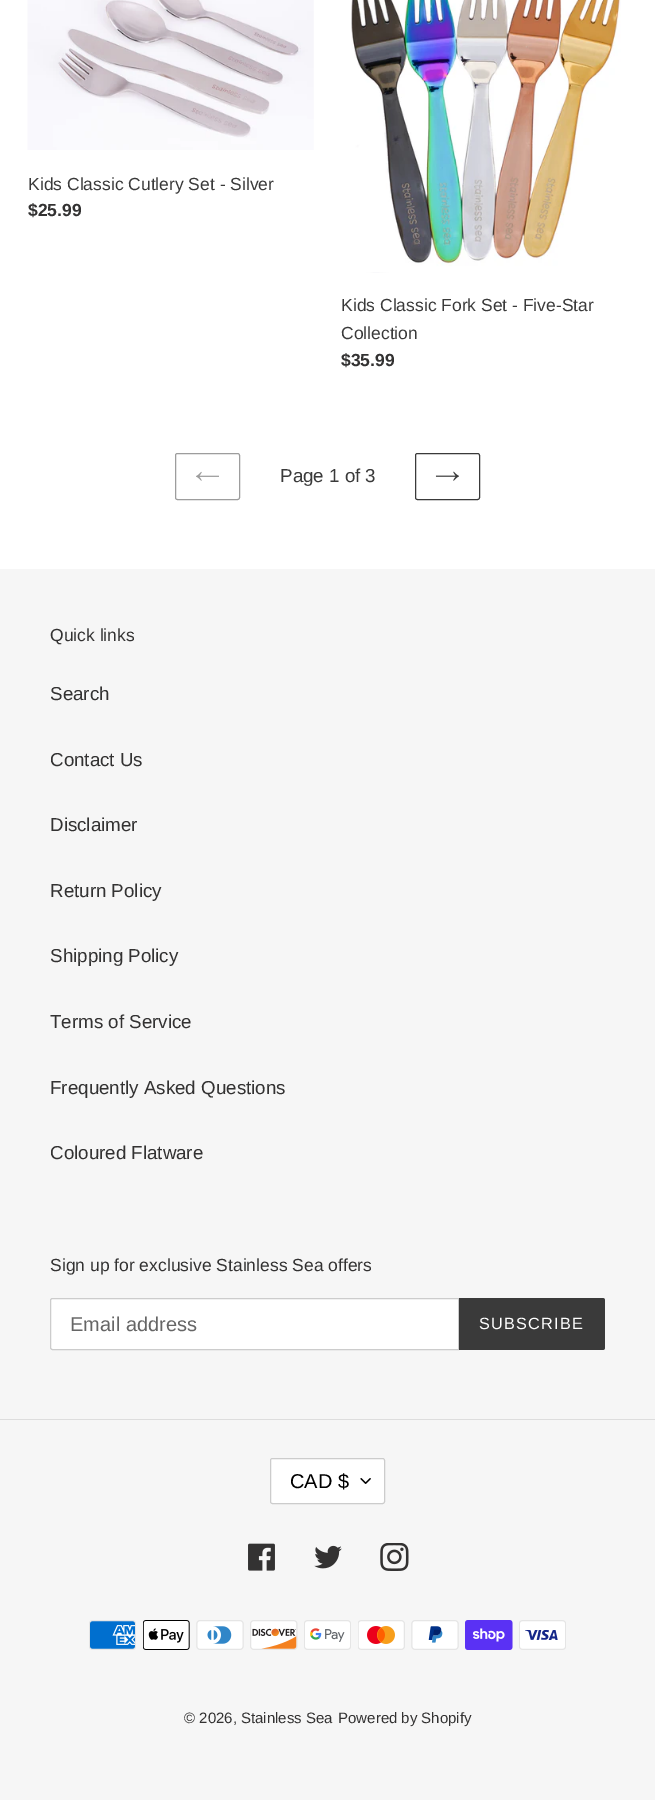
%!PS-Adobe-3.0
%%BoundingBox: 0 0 655 1800
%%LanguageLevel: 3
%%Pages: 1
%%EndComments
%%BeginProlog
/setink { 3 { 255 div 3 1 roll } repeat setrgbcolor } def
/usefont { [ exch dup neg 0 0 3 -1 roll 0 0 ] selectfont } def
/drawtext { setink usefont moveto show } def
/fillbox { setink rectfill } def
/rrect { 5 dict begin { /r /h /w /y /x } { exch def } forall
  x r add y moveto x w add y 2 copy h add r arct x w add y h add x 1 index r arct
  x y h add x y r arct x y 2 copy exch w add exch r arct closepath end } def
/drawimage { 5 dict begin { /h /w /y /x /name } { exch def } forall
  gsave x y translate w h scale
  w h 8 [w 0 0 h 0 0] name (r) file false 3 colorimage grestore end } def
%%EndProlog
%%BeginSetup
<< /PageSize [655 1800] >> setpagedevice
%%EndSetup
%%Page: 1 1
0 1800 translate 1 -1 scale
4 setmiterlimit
0 0 655 1800 255 255 255 fillbox
(assets/img1.rgb) 27 0 287 150 drawimage
(Kids Classic Cutlery Set - Silver) 28 190 /Arimo-Regular 17.5 58 58 58 drawtext
($25.99) 28 216 /LiberationSans-Bold 17.5 51 50 50 drawtext
(assets/img2.rgb) 351 0 270 273 drawimage
(Kids Classic Fork Set - Five-Star) 341 311 /Arimo-Regular 17.5 58 58 58 drawtext
(Collection) 341 339 /Arimo-Regular 17.5 58 58 58 drawtext
($35.99) 341 366 /LiberationSans-Bold 17.5 51 50 50 drawtext
157 157 157 setink
175.5 453.5 64 46 2 rrect stroke
(assets/img3.rgb) 196 471 23 10 drawimage
(Page 1 of 3) 280 482 /LiberationSans-Regular 18.75 58 58 58 drawtext
415.5 453.5 64 46 2 rrect stroke
(assets/img4.rgb) 435 471 24 10 drawimage
0 569 655 1231 246 246 246 fillbox
(Quick links) 50 641 /Arimo-Regular 17.5 51 50 50 drawtext
(Search) 50 700 /LiberationSans-Regular 18.75 51 50 50 drawtext
(Contact Us) 50 766 /LiberationSans-Regular 18.75 51 50 50 drawtext
(Disclaimer) 50 831 /LiberationSans-Regular 18.75 51 50 50 drawtext
(Return Policy) 50 897 /LiberationSans-Regular 18.75 51 50 50 drawtext
(Shipping Policy) 50 962 /LiberationSans-Regular 18.75 51 50 50 drawtext
(Terms of Service) 50 1028 /LiberationSans-Regular 18.75 51 50 50 drawtext
(Frequently Asked Questions) 50 1094 /LiberationSans-Regular 18.75 51 50 50 drawtext
(Coloured Flatware) 50 1159 /LiberationSans-Regular 18.75 51 50 50 drawtext
(Sign up for exclusive Stainless Sea offers) 50 1271 /Arimo-Regular 17.5 51 50 50 drawtext
255 255 255 setink
52.5 1298.5 moveto 458.5 1298.5 lineto 458.5 1349.5 lineto 52.5 1349.5 lineto 51.5 1349.5 50.5 1348.5 50.5 1347.5 curveto 50.5 1300.5 lineto 50.5 1299.5 51.5 1298.5 52.5 1298.5 curveto closepath gsave fill grestore
204 204 204 setink
stroke
(Email address) 70 1331 /LiberationSans-Regular 20 102 102 102 drawtext
58 58 58 setink
459 1298 moveto 602.5 1298 lineto 604 1298 605 1299 605 1300.5 curveto 605 1347.5 lineto 605 1349 604 1350 602.5 1350 curveto 459 1350 lineto closepath fill
/Arimo-Regular 16.25 usefont
255 255 255 setink
479 1329 moveto 1.25 0 (SUBSCRIBE) ashow
0 1419 655 1 221 221 221 fillbox
255 255 255 setink
270 1458 115 46 2.5 rrect fill
(assets/img5.rgb) 360 1478 11 6 drawimage
204 204 204 setink
270.5 1458.5 114 45 2 rrect stroke
(CAD $) 290 1488 /LiberationSans-Regular 20 0 0 0 drawtext
(assets/img6.rgb) 248 1543 27 28 drawimage
(assets/img7.rgb) 314 1545 28 24 drawimage
(assets/img8.rgb) 380 1543 29 28 drawimage
(assets/img9.rgb) 89 1620 47 30 drawimage
(assets/img10.rgb) 143 1620 47 30 drawimage
(assets/img11.rgb) 196 1620 48 30 drawimage
(assets/img12.rgb) 250 1620 48 30 drawimage
(assets/img13.rgb) 304 1620 47 30 drawimage
(assets/img14.rgb) 358 1620 47 30 drawimage
(assets/img15.rgb) 411 1620 48 30 drawimage
(assets/img16.rgb) 465 1620 48 30 drawimage
(assets/img17.rgb) 519 1620 47 30 drawimage
(© 2026, Stainless Sea) 184 1723 /LiberationSans-Regular 15 51 50 50 drawtext
(Powered by Shopify) 338 1723 /LiberationSans-Regular 15 51 50 50 drawtext
showpage
%%EOF
